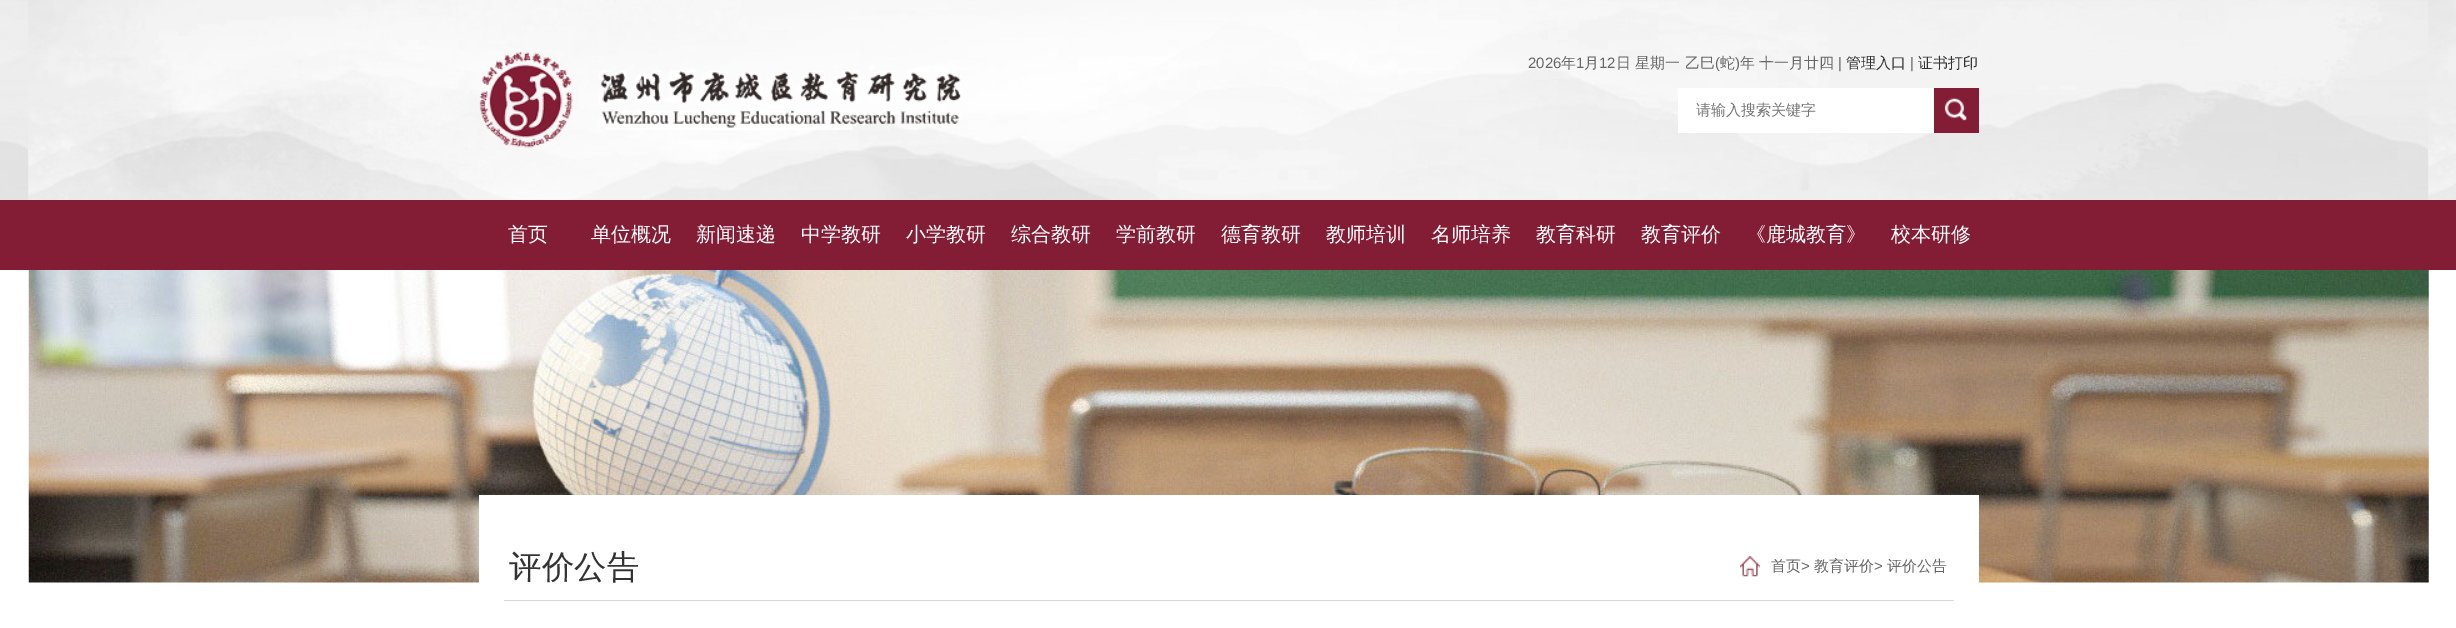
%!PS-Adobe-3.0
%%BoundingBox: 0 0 2456 628
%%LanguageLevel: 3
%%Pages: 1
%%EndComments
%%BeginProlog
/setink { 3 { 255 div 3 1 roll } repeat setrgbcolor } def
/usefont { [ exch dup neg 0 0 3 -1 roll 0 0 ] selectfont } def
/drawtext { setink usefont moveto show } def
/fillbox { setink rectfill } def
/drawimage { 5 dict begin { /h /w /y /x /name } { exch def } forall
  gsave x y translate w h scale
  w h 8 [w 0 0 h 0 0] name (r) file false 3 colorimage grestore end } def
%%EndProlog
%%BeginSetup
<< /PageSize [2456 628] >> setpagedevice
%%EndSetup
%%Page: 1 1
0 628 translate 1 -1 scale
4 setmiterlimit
0 0 2456 628 255 255 255 fillbox
(assets/img1.rgb) 0 0 2456 200 drawimage
(assets/img2.rgb) 479 52 482 96 drawimage
(2026) 1528 68 /LiberationSans-Regular 15 102 102 102 drawtext
(年) 1561 68 /WenQuanYiZenHei-Medium 15 102 102 102 drawtext
(1) 1576 68 /LiberationSans-Regular 15 102 102 102 drawtext
(月) 1584 68 /WenQuanYiZenHei-Medium 15 102 102 102 drawtext
(12) 1599 68 /LiberationSans-Regular 15 102 102 102 drawtext
(日 星期一 乙巳) 1616 68 /WenQuanYiZenHei-Medium 15 102 102 102 drawtext
(\() 1715 68 /LiberationSans-Regular 15 102 102 102 drawtext
(蛇) 1720 68 /WenQuanYiZenHei-Medium 15 102 102 102 drawtext
(\)) 1735 68 /LiberationSans-Regular 15 102 102 102 drawtext
(年 十一月廿四) 1740 68 /WenQuanYiZenHei-Medium 15 102 102 102 drawtext
(|) 1838 68 /LiberationSans-Regular 15 102 102 102 drawtext
(管理入口) 1846 68 /WenQuanYiZenHei-Medium 15 51 51 51 drawtext
(|) 1910 68 /LiberationSans-Regular 15 102 102 102 drawtext
(证书打印) 1918 68 /WenQuanYiZenHei-Medium 15 51 51 51 drawtext
1678 88 256 45 255 255 255 fillbox
(请输入搜索关键字) 1696 115 /WenQuanYiZenHei-Medium 15 117 117 117 drawtext
1934 88 45 45 131 29 53 fillbox
(assets/img3.rgb) 1944 98 23 23 drawimage
0 200 2456 70 131 29 53 fillbox
(首页) 508 241 /WenQuanYiZenHei-Medium 20 255 255 255 drawtext
(单位概况) 591 241 /WenQuanYiZenHei-Medium 20 255 255 255 drawtext
(新闻速递) 696 241 /WenQuanYiZenHei-Medium 20 255 255 255 drawtext
(中学教研) 801 241 /WenQuanYiZenHei-Medium 20 255 255 255 drawtext
(小学教研) 906 241 /WenQuanYiZenHei-Medium 20 255 255 255 drawtext
(综合教研) 1011 241 /WenQuanYiZenHei-Medium 20 255 255 255 drawtext
(学前教研) 1116 241 /WenQuanYiZenHei-Medium 20 255 255 255 drawtext
(德育教研) 1221 241 /WenQuanYiZenHei-Medium 20 255 255 255 drawtext
(教师培训) 1326 241 /WenQuanYiZenHei-Medium 20 255 255 255 drawtext
(名师培养) 1431 241 /WenQuanYiZenHei-Medium 20 255 255 255 drawtext
(教育科研) 1536 241 /WenQuanYiZenHei-Medium 20 255 255 255 drawtext
(教育评价) 1641 241 /WenQuanYiZenHei-Medium 20 255 255 255 drawtext
(《鹿城教育》) 1746 241 /WenQuanYiZenHei-Medium 20 255 255 255 drawtext
(校本研修) 1891 241 /WenQuanYiZenHei-Medium 20 255 255 255 drawtext
(assets/img4.rgb) 28 270 2401 313 drawimage
479 495 1500 88 255 255 255 fillbox
504 600 1450 1 216 216 216 fillbox
(评价公告) 509 578 /WenQuanYiZenHei-Medium 32.5 51 51 51 drawtext
(assets/img5.rgb) 1740 556 20 21 drawimage
(首页) 1771 571 /WenQuanYiZenHei-Medium 15 102 102 102 drawtext
(>) 1801 571 /LiberationSans-Regular 15 102 102 102 drawtext
(教育评价) 1814 571 /WenQuanYiZenHei-Medium 15 102 102 102 drawtext
(>) 1874 571 /LiberationSans-Regular 15 102 102 102 drawtext
(评价公告) 1887 571 /WenQuanYiZenHei-Medium 15 102 102 102 drawtext
showpage
%%EOF
